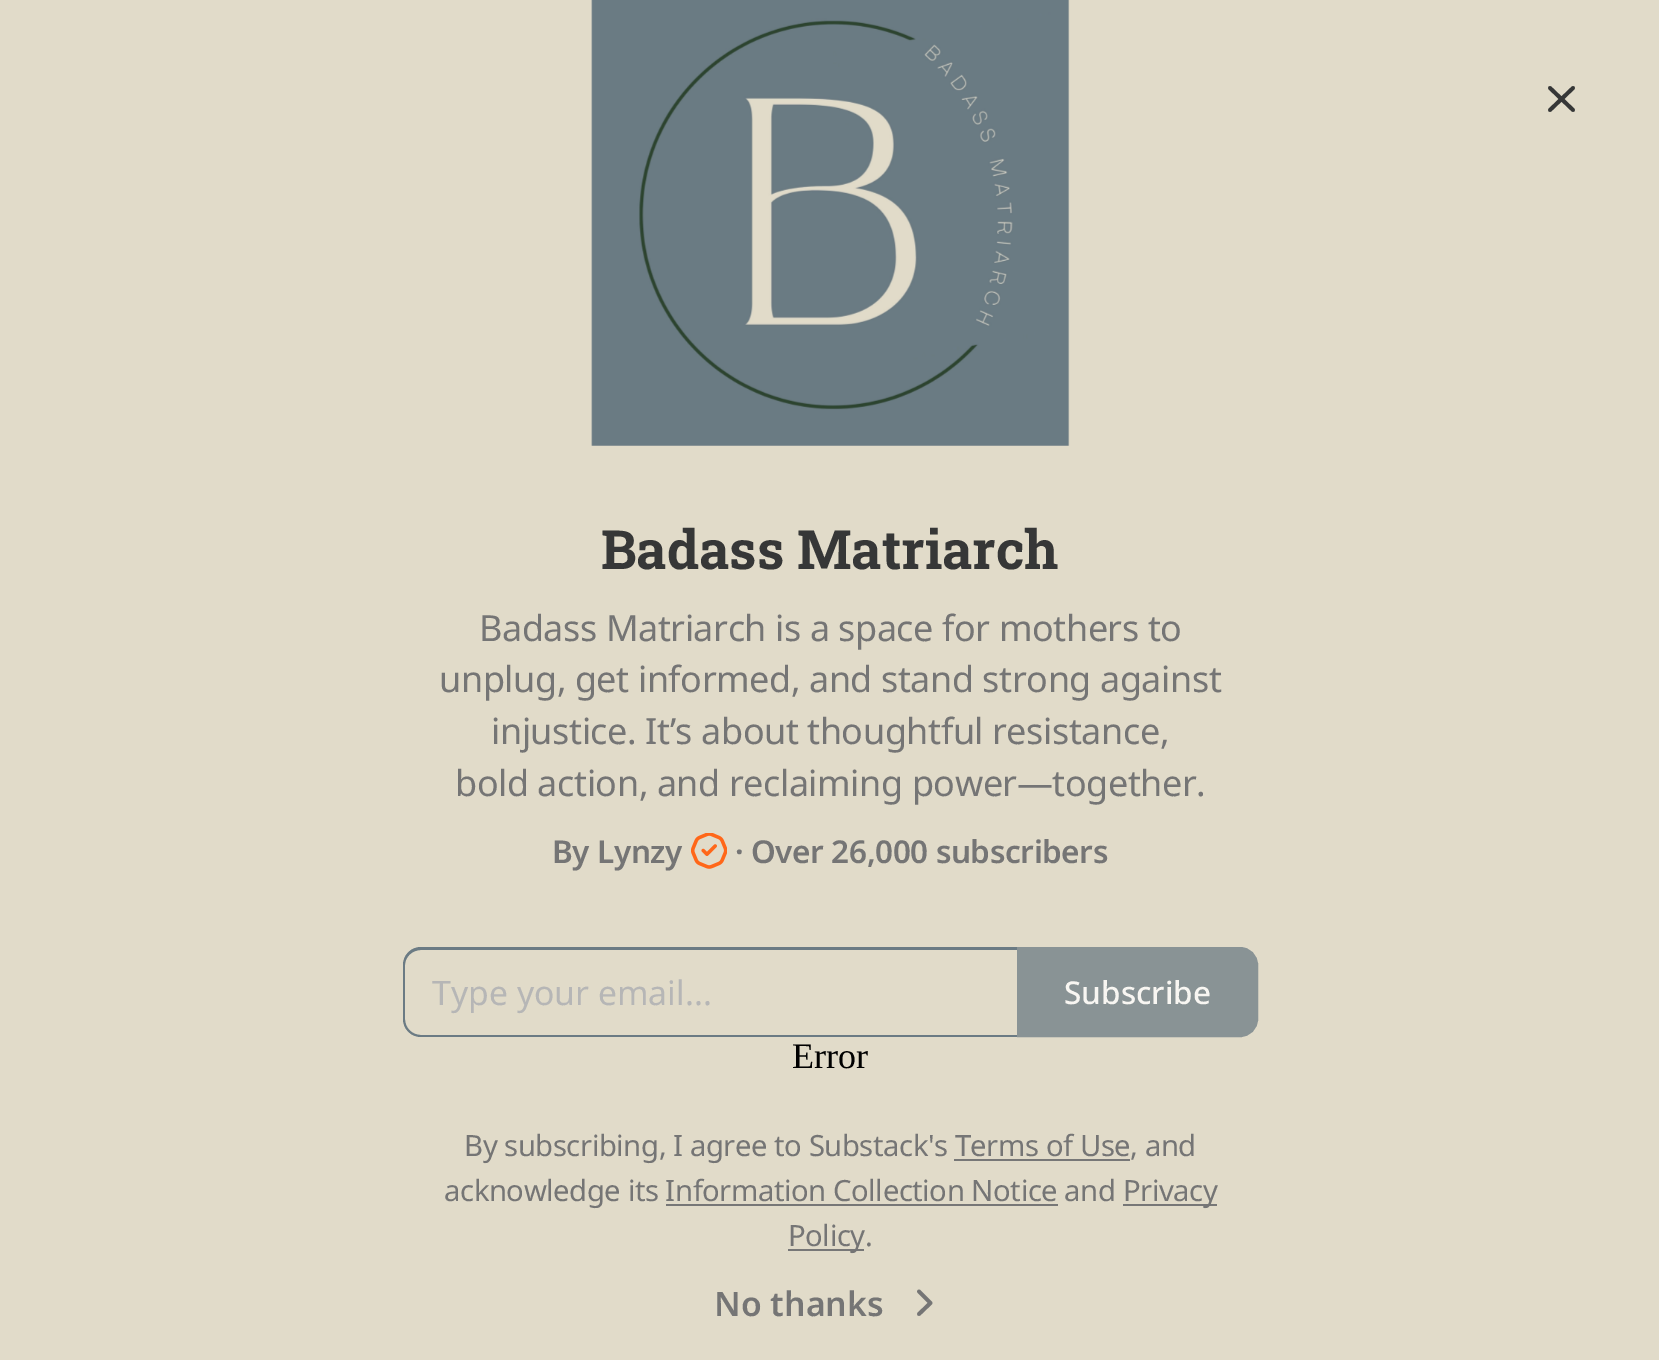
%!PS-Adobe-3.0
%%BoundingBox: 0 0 1659 1360
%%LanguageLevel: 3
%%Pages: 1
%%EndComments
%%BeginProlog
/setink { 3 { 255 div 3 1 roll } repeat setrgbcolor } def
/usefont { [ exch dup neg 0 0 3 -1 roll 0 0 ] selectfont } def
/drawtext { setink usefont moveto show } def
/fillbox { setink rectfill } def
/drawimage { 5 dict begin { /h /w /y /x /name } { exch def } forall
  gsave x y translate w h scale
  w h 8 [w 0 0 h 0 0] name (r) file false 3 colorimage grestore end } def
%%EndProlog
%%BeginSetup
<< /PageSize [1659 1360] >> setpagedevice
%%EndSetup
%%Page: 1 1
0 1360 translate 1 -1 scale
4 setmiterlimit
0 0 1659 1360 225 219 201 fillbox
(assets/img1.rgb) 591 0 479 446 drawimage
54 55 55 setink
3.8 setlinewidth
1 setlinecap
1 setlinejoin
1573 88 moveto 1550 110 lineto 1550 88 moveto 1573 110 lineto stroke
(Badass Matriarch) 601 569 /RobotoSlab-Bold 54 54 55 55 drawtext
/NotoSans-Regular 36 usefont
117 117 117 setink
479 641 moveto -0.45 0 (Badass Matriarch is a space for mothers to) ashow
439 692 moveto -0.45 0 (unplug, get informed, and stand strong against) ashow
491 744 moveto -0.45 0 (injustice. It’s about thoughtful resistance,) ashow
455 796 moveto -0.45 0 (bold action, and reclaiming power—together.) ashow
/NotoSans-SemiBold 31.5 usefont
552 863 moveto -0.4 0 (By Lynzy) ashow
(assets/img2.rgb) 691 833 36 36 drawimage
735 863 moveto -0.4 0 (· Over 26,000 subscribers) ashow
107 123 132 setink
421 947 moveto 1017 947 lineto 1017 1037 lineto 421 1037 lineto 411 1037 403 1029 403 1019 curveto 403 965 lineto 403 955 411 947 421 947 curveto closepath 421 950 moveto 1017 950 lineto 1017 1035 lineto 421 1035 lineto 412 1035 405 1028 405 1019 curveto 405 965 lineto 405 957 412 950 421 950 curveto closepath eofill
(Type your email...) 432 1005 /NotoSans-Regular 33.75 182 182 182 drawtext
137 147 149 setink
1018 948 moveto 1240 948 lineto 1249.5 948 1257 955.5 1257 965 curveto 1257 1019 lineto 1257 1028.5 1249.5 1036 1240 1036 curveto 1018 1036 lineto closepath gsave fill grestore
2 setlinewidth
0 setlinecap
0 setlinejoin
stroke
(Subscribe) 1064 1004 /NotoSans-Medium 31.5 248 246 242 drawtext
(Error) 792 1068 /LiberationSerif-Regular 36 0 0 0 drawtext
/NotoSans-Regular 29.25 usefont
117 117 117 setink
464 1156 moveto -0.45 0 (By subscribing, I agree to Substack's Terms of Use, and) ashow
954 1159 176 2 119 119 119 fillbox
117 117 117 setink
444 1201 moveto -0.45 0 (acknowledge its Information Collection Notice and) ashow
1123 1204 94 2 119 119 119 fillbox
117 117 117 setink
1123 1201 moveto -0.45 0 (Privacy) ashow
666 1204 392 2 119 119 119 fillbox
788 1249 76 2 119 119 119 fillbox
117 117 117 setink
788 1246 moveto -0.45 0 (Policy.) ashow
(No thanks) 714 1316 /NotoSans-SemiBold 33.75 117 117 117 drawtext
3.8 setlinewidth
1 setlinecap
1 setlinejoin
919 1314 moveto 930.5 1303 lineto 919 1291.5 lineto stroke
showpage
%%EOF
